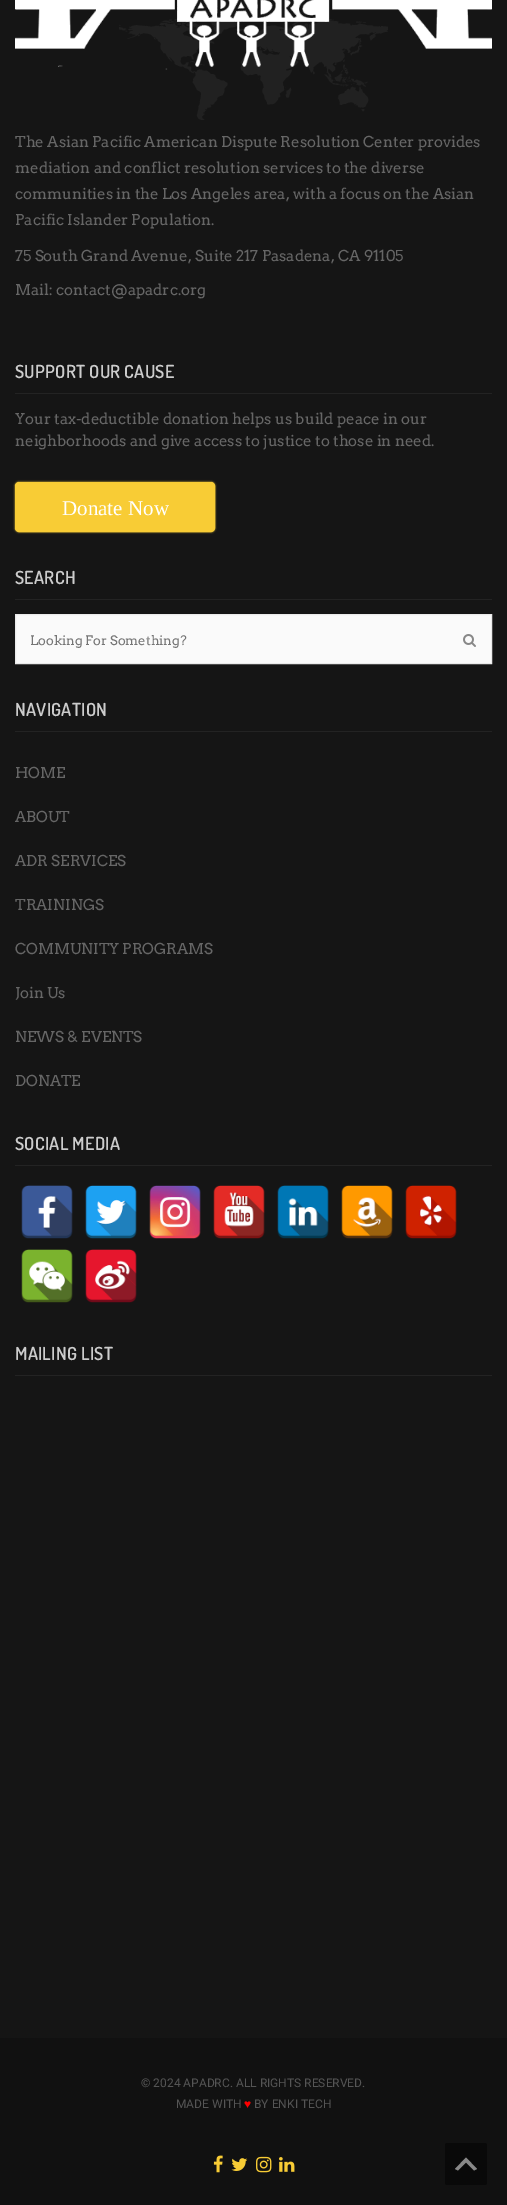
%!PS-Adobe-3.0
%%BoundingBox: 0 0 507 2205
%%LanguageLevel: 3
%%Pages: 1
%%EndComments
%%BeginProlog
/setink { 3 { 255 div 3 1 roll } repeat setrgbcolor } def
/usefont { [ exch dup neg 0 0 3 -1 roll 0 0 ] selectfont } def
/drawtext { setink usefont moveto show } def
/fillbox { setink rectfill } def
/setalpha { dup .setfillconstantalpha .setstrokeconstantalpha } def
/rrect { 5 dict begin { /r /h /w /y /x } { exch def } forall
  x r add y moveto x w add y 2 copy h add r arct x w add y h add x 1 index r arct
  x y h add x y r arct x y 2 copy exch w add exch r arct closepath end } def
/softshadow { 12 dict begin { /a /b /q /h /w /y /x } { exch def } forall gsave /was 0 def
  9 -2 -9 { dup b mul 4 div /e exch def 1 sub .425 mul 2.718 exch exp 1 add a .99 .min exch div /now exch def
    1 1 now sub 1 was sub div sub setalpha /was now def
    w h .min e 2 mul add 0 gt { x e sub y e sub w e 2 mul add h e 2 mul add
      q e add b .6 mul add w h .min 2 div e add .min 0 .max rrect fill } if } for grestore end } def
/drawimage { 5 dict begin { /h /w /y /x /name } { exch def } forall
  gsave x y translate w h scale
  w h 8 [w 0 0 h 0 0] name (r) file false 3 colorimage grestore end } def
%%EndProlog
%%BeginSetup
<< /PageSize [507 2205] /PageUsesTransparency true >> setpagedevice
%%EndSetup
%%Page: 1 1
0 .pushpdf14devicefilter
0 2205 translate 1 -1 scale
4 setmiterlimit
0 0 507 2205 21 21 21 fillbox
(assets/img1.rgb) 119 16 269 104 drawimage
(assets/img2.rgb) 15 0 477 70 drawimage
(The Asian Pacific American Dispute Resolution Center provides) 15 147 /Arvo-Regular 15 102 102 102 drawtext
(mediation and conflict resolution services to the diverse) 15 173 /Arvo-Regular 15 102 102 102 drawtext
(communities in the Los Angeles area, with a focus on the Asian) 15 199 /Arvo-Regular 15 102 102 102 drawtext
(Pacific Islander Population.) 15 225 /Arvo-Regular 15 102 102 102 drawtext
(75 South Grand Avenue, Suite 217 Pasadena, CA 91105) 15 261 /Arvo-Regular 15 102 102 102 drawtext
(Mail: contact@apadrc.org) 15 295 /Arvo-Regular 15 102 102 102 drawtext
15 393 477 1 35 35 35 fillbox
/Dosis-SemiBold 18 usefont
204 204 204 setink
15 378 moveto 0.25 0 (SUPPORT OUR CAUSE) ashow
(Your tax-deductible donation helps us build peace in our) 15 424 /Arvo-Regular 15 102 102 102 drawtext
(neighborhoods and give access to justice to those in need.) 15 446 /Arvo-Regular 15 102 102 102 drawtext
248 204 53 setink
15 482 200 50 4 1 1 softshadow
16 483 198 48 3 rrect gsave fill grestore
2 setlinewidth
stroke
(Donate Now) 62 515 /LiberationSerif-Regular 21 255 255 255 drawtext
15 599 477 1 35 35 35 fillbox
/Dosis-SemiBold 18 usefont
204 204 204 setink
15 584 moveto 0.25 0 (SEARCH) ashow
250 250 250 setink
15.5 614.5 moveto 491.5 614.5 lineto 491.5 663.5 lineto 15.5 663.5 lineto closepath gsave fill grestore
234 234 234 setink
1 setlinewidth
stroke
(Looking For Something?) 30 645 /Arvo-Regular 13 117 117 117 drawtext
(assets/img3.rgb) 463 634 13 13 drawimage
15 731 477 1 35 35 35 fillbox
/Dosis-SemiBold 18 usefont
204 204 204 setink
15 716 moveto 0.25 0 (NAVIGATION) ashow
(HOME) 15 778 /Arvo-Regular 15 102 102 102 drawtext
(ABOUT) 15 822 /Arvo-Regular 15 102 102 102 drawtext
(ADR SERVICES) 15 866 /Arvo-Regular 15 102 102 102 drawtext
(TRAININGS) 15 910 /Arvo-Regular 15 102 102 102 drawtext
(COMMUNITY PROGRAMS) 15 954 /Arvo-Regular 15 102 102 102 drawtext
(Join Us) 15 998 /Arvo-Regular 15 102 102 102 drawtext
(NEWS & EVENTS) 15 1042 /Arvo-Regular 15 102 102 102 drawtext
(DONATE) 15 1086 /Arvo-Regular 15 102 102 102 drawtext
15 1165 477 1 35 35 35 fillbox
/Dosis-SemiBold 18 usefont
204 204 204 setink
15 1150 moveto 0.25 0 (SOCIAL MEDIA) ashow
(assets/img4.rgb) 21 1185 52 54 drawimage
(assets/img5.rgb) 85 1185 52 54 drawimage
(assets/img6.rgb) 149 1185 52 54 drawimage
(assets/img7.rgb) 213 1185 52 54 drawimage
(assets/img8.rgb) 277 1185 52 54 drawimage
(assets/img9.rgb) 341 1185 52 54 drawimage
(assets/img10.rgb) 405 1185 52 54 drawimage
(assets/img11.rgb) 21 1249 52 54 drawimage
(assets/img12.rgb) 85 1249 52 54 drawimage
15 1375 477 1 35 35 35 fillbox
204 204 204 setink
15 1360 moveto 0.25 0 (MAILING LIST) ashow
0 2038 507 167 17 17 17 fillbox
(© 2024 APADRC. ALL RIGHTS RESERVED.) 141 2087 /Roboto-Regular 12 85 85 85 drawtext
(MADE WITH) 176 2108 /Roboto-Regular 12 85 85 85 drawtext
(♥) 244 2108 /LiberationSans-Regular 12 255 0 0 drawtext
(BY ENKI TECH) 254 2108 /Roboto-Regular 12 85 85 85 drawtext
(assets/img13.rgb) 213 2155 10 18 drawimage
(assets/img14.rgb) 231 2158 17 13 drawimage
(assets/img15.rgb) 256 2156 16 17 drawimage
(assets/img16.rgb) 279 2157 16 15 drawimage
9 9 9 setink
445 2143 42 42 2 rrect fill
136 136 136 setink
474 2170.5 moveto 466 2162.5 lineto 458 2170.5 lineto 455 2169 lineto 466 2157.5 lineto 477 2169 lineto closepath fill
.poppdf14devicefilter showpage
%%EOF
